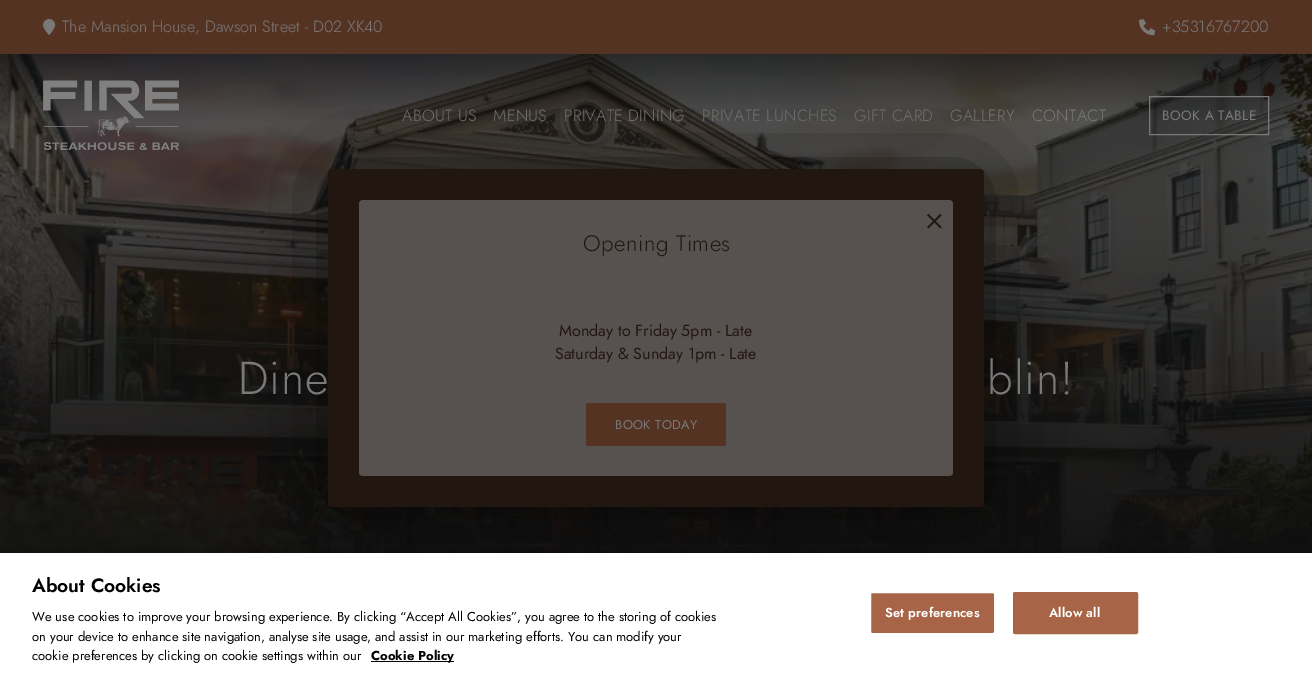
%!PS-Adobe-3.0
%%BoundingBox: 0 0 1312 676
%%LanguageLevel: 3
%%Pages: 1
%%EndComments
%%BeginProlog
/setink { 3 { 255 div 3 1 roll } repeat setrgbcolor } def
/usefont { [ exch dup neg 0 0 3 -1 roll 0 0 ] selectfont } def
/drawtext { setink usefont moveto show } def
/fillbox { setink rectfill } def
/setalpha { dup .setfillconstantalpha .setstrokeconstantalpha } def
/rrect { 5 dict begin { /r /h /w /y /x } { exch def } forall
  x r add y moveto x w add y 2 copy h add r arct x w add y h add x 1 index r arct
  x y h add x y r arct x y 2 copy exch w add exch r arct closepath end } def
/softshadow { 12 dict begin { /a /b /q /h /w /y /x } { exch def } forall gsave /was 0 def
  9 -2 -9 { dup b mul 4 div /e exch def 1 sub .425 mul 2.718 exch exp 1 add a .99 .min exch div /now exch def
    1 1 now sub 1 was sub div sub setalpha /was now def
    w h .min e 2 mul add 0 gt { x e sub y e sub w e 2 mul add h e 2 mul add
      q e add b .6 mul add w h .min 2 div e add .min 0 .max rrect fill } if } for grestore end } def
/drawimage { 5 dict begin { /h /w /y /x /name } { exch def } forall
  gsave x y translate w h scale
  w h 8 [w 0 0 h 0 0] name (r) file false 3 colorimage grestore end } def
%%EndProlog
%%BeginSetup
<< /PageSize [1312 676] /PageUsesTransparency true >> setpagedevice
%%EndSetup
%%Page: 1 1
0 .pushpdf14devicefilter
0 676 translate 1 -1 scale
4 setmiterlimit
0 0 1312 676 255 255 255 fillbox
0 0 1312 54 85 51 35 fillbox
(assets/img1.rgb) 43 19 13 17 drawimage
(The Mansion House, Dawson Street - D02 XK40) 62 32 /Jost-Light 16.25 122 121 121 drawtext
(assets/img2.rgb) 1139 19 17 17 drawimage
(+35316767200) 1162 32 /Jost-Light 16.25 122 121 121 drawtext
(assets/img5.rgb) 0 54 1312 499 drawimage
(assets/img3.rgb) 43 80 136 71 drawimage
402 121 moveto 0.3 0 (ABOUT US) ashow
493 121 moveto 0.3 0 (MENUS) ashow
564 121 moveto 0.3 0 (PRIVATE DINING) ashow
702 121 moveto 0.3 0 (PRIVATE LUNCHES) ashow
854 121 moveto 0.3 0 (GIFT CARD) ashow
950 121 moveto 0.3 0 (GALLERY) ashow
1032 121 moveto 0.3 0 (CONTACT) ashow
1149.5 96.5 119 38 rectstroke
/Jost-Regular 13.5 usefont
1162 120 moveto 0.4 0 (BOOK A TABLE) ashow
0 0 0 setink
328 169 656 338 4 48 0.62 softshadow
34 22 17 setink
328 169 656 338 4 rrect fill
87 82 79 setink
359 200 594 276 4 rrect fill
(assets/img4.rgb) 927 213 15 16 drawimage
/Jost-Light 22.5 usefont
34 22 17 setink
583 251 moveto 0.5 0 (Opening Times) ashow
(Monday to Friday 5pm - Late) 559 336 /Jost-Regular 16 34 22 17 drawtext
(Saturday & Sunday 1pm - Late) 555 359 /Jost-Regular 16 34 22 17 drawtext
586 403 140 43 85 51 35 fillbox
/Jost-Regular 12.75 usefont
122 121 121 setink
615 429 moveto 0.4 0 (BOOK TODAY) ashow
/Jost-Light 46 usefont
238 394 moveto 1 0 (Dine) ashow
987 394 moveto 1 0 (blin!) ashow
0 0 0 setink
0 553 1312 123 0 9 0.2 softshadow
0 553 1312 123 255 255 255 fillbox
(About Cookies) 32 592 /Jost-SemiBold 19.25 0 0 0 drawtext
(We use cookies to improve your browsing experience. By clicking “Accept All Cookies”, you agree to the storing of cookies) 32 621 /Jost-Regular 13 0 0 0 drawtext
(on your device to enhance site navigation, analyse site usage, and assist in our marketing efforts. You can modify your) 32 641 /Jost-Regular 13 0 0 0 drawtext
(cookie preferences by clicking on cookie settings within our) 32 660 /Jost-Regular 13 0 0 0 drawtext
371 661 83 1 0 0 0 fillbox
(Cookie Policy) 371 660 /Jost-Bold 13 0 0 0 drawtext
168 100 70 setink
870.5 592.5 124 41 1.5 rrect gsave fill grestore
255 255 255 setink
stroke
/Jost-SemiBold 13 usefont
885 617 moveto 0.1 0 (Set preferences) ashow
168 100 70 setink
1013.5 592.5 124 41 1.5 rrect gsave fill grestore
stroke
255 255 255 setink
1049 617 moveto 0.1 0 (Allow all) ashow
.poppdf14devicefilter showpage
%%EOF
